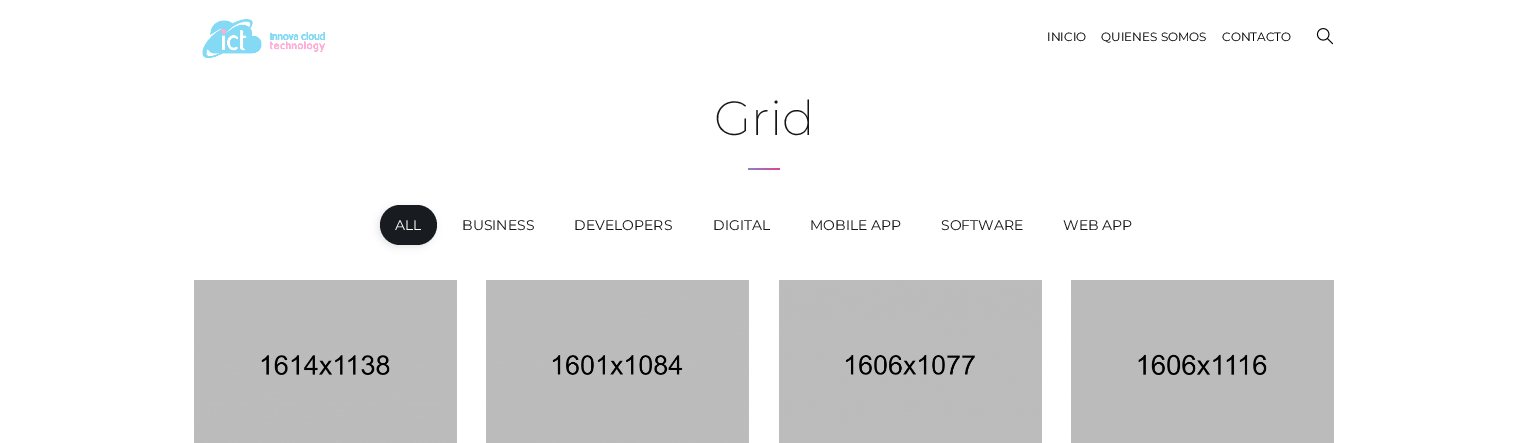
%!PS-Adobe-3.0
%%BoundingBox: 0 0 1528 443
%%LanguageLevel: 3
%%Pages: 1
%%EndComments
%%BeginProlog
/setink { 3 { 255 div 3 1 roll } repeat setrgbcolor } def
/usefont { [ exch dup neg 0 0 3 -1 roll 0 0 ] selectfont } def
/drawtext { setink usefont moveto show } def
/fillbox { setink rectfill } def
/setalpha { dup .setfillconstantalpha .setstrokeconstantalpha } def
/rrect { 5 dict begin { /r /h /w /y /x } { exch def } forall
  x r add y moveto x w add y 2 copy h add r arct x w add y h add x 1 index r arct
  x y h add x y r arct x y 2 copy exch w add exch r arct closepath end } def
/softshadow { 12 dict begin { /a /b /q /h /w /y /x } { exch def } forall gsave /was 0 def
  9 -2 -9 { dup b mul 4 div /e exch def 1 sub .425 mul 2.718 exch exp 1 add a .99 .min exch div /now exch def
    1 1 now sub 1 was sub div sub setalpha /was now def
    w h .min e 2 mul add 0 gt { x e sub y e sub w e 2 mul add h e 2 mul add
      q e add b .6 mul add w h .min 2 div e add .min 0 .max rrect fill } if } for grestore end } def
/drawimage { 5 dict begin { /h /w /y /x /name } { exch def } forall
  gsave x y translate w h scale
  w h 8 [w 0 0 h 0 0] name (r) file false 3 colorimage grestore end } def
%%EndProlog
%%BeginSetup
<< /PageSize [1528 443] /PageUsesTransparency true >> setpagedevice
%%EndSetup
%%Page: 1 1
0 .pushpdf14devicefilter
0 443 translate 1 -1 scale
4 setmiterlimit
0 0 1528 443 255 255 255 fillbox
(assets/img1.rgb) 202 19 123 40 drawimage
(INICIO) 1047 41 /Montserrat-Regular 12 0 0 0 drawtext
(QUIENES SOMOS) 1101 41 /Montserrat-Regular 12 0 0 0 drawtext
(CONTACTO) 1222 41 /Montserrat-Regular 12 0 0 0 drawtext
(assets/img2.rgb) 1316 28 17 17 drawimage
(Grid) 714 135 /Montserrat-ExtraLight 48 22 22 22 drawtext
gsave 748 168 moveto 780 168 lineto 780 170 lineto 748 170 lineto closepath clip newpath
<< /ShadingType 2 /ColorSpace /DeviceRGB /Coords [748 169 780 169] /Extend [true true] /Function << /FunctionType 2 /Domain [0 1] /C0 [0.549 0.502 0.808] /C1 [0.878 0.263 0.569] /N 1 >> >> shfill grestore
0 0 0 setink
378 207 57 40 20 3.5 0.1 softshadow
24 27 31 setink
380 205 57 40 20 rrect fill
(ALL) 395 230 /Montserrat-Regular 14 255 255 255 drawtext
(BUSINESS) 462 230 /Montserrat-Regular 14 22 22 22 drawtext
(DEVELOPERS) 574 230 /Montserrat-Regular 14 22 22 22 drawtext
(DIGITAL) 713 230 /Montserrat-Regular 14 22 22 22 drawtext
(MOBILE APP) 810 230 /Montserrat-Regular 14 22 22 22 drawtext
(SOFTWARE) 941 230 /Montserrat-Regular 14 22 22 22 drawtext
(WEB APP) 1063 230 /Montserrat-Regular 14 22 22 22 drawtext
(assets/img3.rgb) 194 280 263 163 drawimage
(assets/img4.rgb) 486 280 263 163 drawimage
(assets/img5.rgb) 779 280 263 163 drawimage
(assets/img6.rgb) 1071 280 263 163 drawimage
.poppdf14devicefilter showpage
%%EOF
